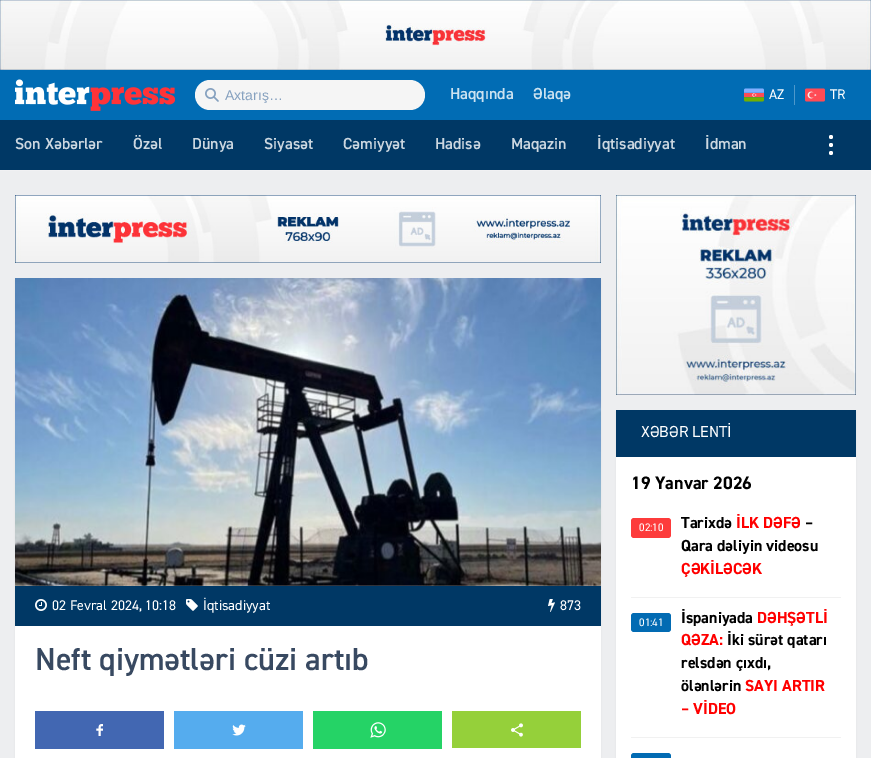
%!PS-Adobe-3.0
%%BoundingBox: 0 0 871 758
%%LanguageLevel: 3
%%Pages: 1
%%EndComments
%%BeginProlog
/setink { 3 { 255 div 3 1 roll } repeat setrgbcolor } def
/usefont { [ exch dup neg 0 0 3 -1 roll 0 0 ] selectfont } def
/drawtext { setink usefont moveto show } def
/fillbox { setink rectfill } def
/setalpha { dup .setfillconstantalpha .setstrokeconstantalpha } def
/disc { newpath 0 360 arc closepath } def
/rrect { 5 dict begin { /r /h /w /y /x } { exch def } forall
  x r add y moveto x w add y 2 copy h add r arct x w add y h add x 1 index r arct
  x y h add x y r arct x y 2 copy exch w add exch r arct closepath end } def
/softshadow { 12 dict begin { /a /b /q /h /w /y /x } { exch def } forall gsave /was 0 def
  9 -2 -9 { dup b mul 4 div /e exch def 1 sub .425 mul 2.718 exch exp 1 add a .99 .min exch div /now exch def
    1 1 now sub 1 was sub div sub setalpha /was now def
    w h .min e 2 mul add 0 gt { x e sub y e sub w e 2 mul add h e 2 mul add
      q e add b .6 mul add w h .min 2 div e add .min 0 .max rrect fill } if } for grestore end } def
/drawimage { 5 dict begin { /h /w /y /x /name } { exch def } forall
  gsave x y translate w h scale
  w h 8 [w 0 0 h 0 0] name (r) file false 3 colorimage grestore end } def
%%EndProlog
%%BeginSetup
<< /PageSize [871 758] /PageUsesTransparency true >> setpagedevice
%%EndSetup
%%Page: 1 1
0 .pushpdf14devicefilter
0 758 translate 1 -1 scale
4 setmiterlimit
0 0 871 758 237 238 240 fillbox
(assets/img1.rgb) 0 0 871 70 drawimage
0 70 871 50 1 108 180 fillbox
(assets/img2.rgb) 15 79 160 32 drawimage
245 245 245 setink
195 80 230 30 15 rrect fill
(assets/img3.rgb) 205 88 14 14 drawimage
(Axtarış…) 225 100 /LiberationSans-Regular 14 134 161 191 drawtext
(Haqqında) 450 99 /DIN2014-SemiBold 16 204 226 240 drawtext
(Əlaqə) 533 99 /DIN2014-SemiBold 16 204 226 240 drawtext
794 85 1 20 77 152 203 fillbox
(assets/img4.rgb) 744 88 20 14 drawimage
(AZ) 769 99 /DIN2014-Regular 14 255 255 255 drawtext
(assets/img5.rgb) 805 88 20 14 drawimage
(TR) 830 99 /DIN2014-Regular 14 255 255 255 drawtext
0 120 871 50 0 56 101 fillbox
(Son Xəbərlər) 15 149 /DIN2014-SemiBold 16 204 215 224 drawtext
(Özəl) 133 149 /DIN2014-SemiBold 16 204 215 224 drawtext
(Dünya) 192 149 /DIN2014-SemiBold 16 204 215 224 drawtext
(Siyasət) 264 149 /DIN2014-SemiBold 16 204 215 224 drawtext
(Cəmiyyət) 343 149 /DIN2014-SemiBold 16 204 215 224 drawtext
(Hadisə) 435 149 /DIN2014-SemiBold 16 204 215 224 drawtext
(Maqazin) 511 149 /DIN2014-SemiBold 16 204 215 224 drawtext
(İqtisadiyyat) 597 149 /DIN2014-SemiBold 16 204 215 224 drawtext
(İdman) 705 149 /DIN2014-SemiBold 16 204 215 224 drawtext
255 255 255 setink
831 137 2 disc fill
831 145 2 disc fill
831 153 2 disc fill
0 170 871 1 241 241 243 fillbox
(assets/img6.rgb) 15 195 586 68 drawimage
204 204 204 setink
15 280 586 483 0 1.5 0.3 softshadow
15 626 586 132 255 255 255 fillbox
(assets/img8.rgb) 15 585 586 1 drawimage
(assets/img7.rgb) 15 278 586 308 drawimage
15 586 586 40 0 56 101 fillbox
(assets/img9.rgb) 35 599 12 12 drawimage
(02 Fevral 2024, 10:18) 52 610 /DIN2014-Regular 14 255 255 255 drawtext
(assets/img10.rgb) 186 599 12 12 drawimage
(İqtisadiyyat) 203 610 /DIN2014-Regular 14 255 255 255 drawtext
(assets/img11.rgb) 548 599 7 13 drawimage
(873) 560 610 /DIN2014-Regular 14 255 255 255 drawtext
(Neft qiymətləri cüzi artıb) 35 670 /DIN2014-SemiBold 32 56 73 97 drawtext
35 711 129 38 66 103 178 fillbox
(assets/img12.rgb) 96 724 7 12 drawimage
174 711 129 38 85 172 238 fillbox
(assets/img13.rgb) 232 724 14 12 drawimage
313 711 129 38 37 211 102 fillbox
(assets/img14.rgb) 370 722 16 16 drawimage
452 711 129 37 149 208 58 fillbox
(assets/img15.rgb) 511 723 12 14 drawimage
(assets/img16.rgb) 616 195 240 200 drawimage
204 204 204 setink
616 412 240 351 0 1.5 0.3 softshadow
616 457 240 301 255 255 255 fillbox
616 410 240 47 0 56 101 fillbox
(XƏBƏR LENTİ) 641 437 /DIN2014-Regular 16 255 255 255 drawtext
(19 Yanvar 2026) 631 489 /DIN2014-Bold 18 0 0 0 drawtext
631 597 210 1 241 241 241 fillbox
253 59 59 setink
631 518 40 20 3 rrect fill
(02:10) 639 531 /DIN2014-Regular 11 255 255 255 drawtext
(Tarixdə) 681 528 /DIN2014-Bold 16 0 0 0 drawtext
(İLK DƏFƏ) 736 528 /DIN2014-Bold 16 255 0 0 drawtext
(–) 805 528 /DIN2014-Bold 16 0 0 0 drawtext
(Qara dəliyin videosu) 681 551 /DIN2014-Bold 16 0 0 0 drawtext
(ÇƏKİLƏCƏK) 681 574 /DIN2014-Bold 16 255 0 0 drawtext
631 737 210 1 241 241 241 fillbox
2 107 179 setink
631 613 40 19 3 rrect fill
(01:41) 639 626 /DIN2014-Regular 11 255 255 255 drawtext
(İspaniyada) 681 623 /DIN2014-Bold 16 0 0 0 drawtext
(DƏHŞƏTLİ) 757 623 /DIN2014-Bold 16 255 0 0 drawtext
(QƏZA:) 681 645 /DIN2014-Bold 16 255 0 0 drawtext
(İki sürət qatarı) 727 645 /DIN2014-Bold 16 0 0 0 drawtext
(relsdən çıxdı,) 681 668 /DIN2014-Bold 16 0 0 0 drawtext
(ölənlərin) 681 691 /DIN2014-Bold 16 0 0 0 drawtext
(SAYI ARTIR) 745 691 /DIN2014-Bold 16 255 0 0 drawtext
(– VİDEO) 681 714 /DIN2014-Bold 16 255 0 0 drawtext
2 107 179 setink
631 753 40 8 3 rrect fill
.poppdf14devicefilter showpage
%%EOF
